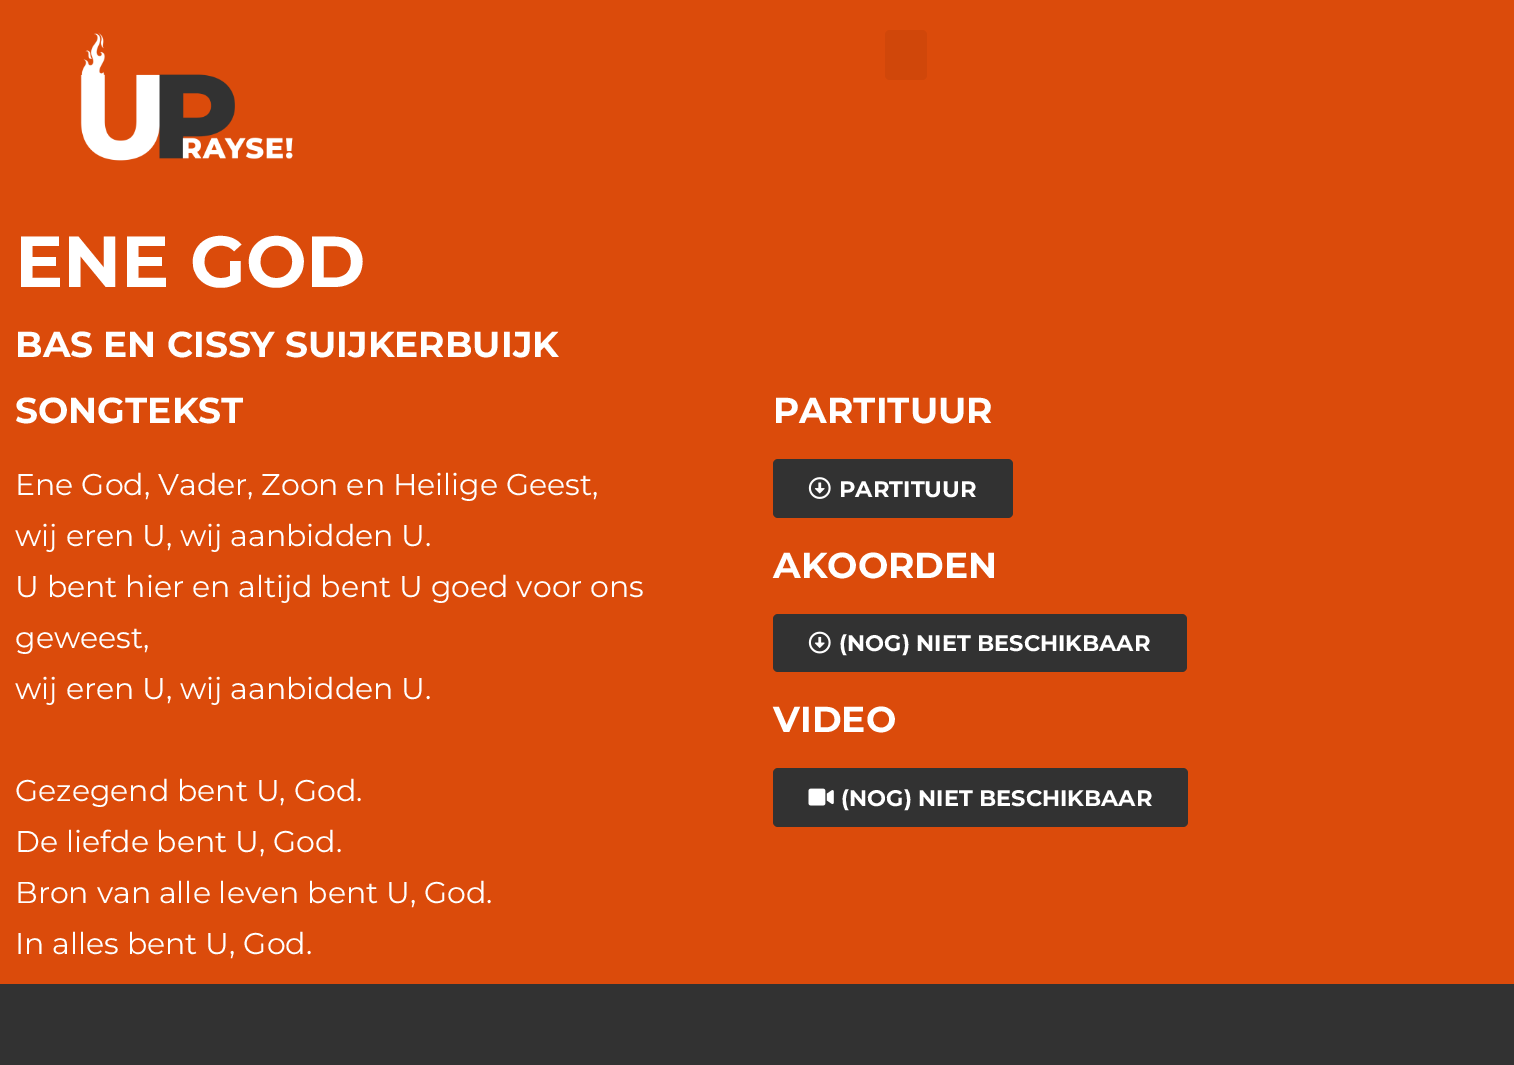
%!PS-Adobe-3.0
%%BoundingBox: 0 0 1514 1065
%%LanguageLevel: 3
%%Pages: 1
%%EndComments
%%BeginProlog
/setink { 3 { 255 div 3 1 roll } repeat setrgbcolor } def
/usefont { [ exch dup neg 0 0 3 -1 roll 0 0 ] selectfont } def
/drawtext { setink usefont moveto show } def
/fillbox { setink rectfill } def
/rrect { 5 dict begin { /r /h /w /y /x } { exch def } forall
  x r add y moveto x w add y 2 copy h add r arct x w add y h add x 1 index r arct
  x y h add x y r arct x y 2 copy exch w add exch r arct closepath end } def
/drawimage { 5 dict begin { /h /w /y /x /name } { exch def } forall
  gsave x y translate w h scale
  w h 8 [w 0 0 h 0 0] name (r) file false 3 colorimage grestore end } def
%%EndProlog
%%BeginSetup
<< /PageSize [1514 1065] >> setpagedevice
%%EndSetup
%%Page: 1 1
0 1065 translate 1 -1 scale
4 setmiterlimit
0 0 1514 1065 219 75 11 fillbox
(assets/img1.rgb) 80 32 213 129 drawimage
208 71 10 setink
885 30 42 50 5 rrect fill
(ENE GOD) 15 287 /Montserrat-Bold 72 255 255 255 drawtext
(BAS EN CISSY SUIJKERBUIJK) 15 357 /Montserrat-Bold 36 255 255 255 drawtext
(SONGTEKST) 15 423 /Montserrat-Bold 36 255 255 255 drawtext
(Ene God, Vader, Zoon en Heilige Geest,) 15 495 /Montserrat-Regular 30 255 255 255 drawtext
(wij eren U, wij aanbidden U.) 15 546 /Montserrat-Regular 30 255 255 255 drawtext
(U bent hier en altijd bent U goed voor ons) 15 597 /Montserrat-Regular 30 255 255 255 drawtext
(geweest,) 15 648 /Montserrat-Regular 30 255 255 255 drawtext
(wij eren U, wij aanbidden U.) 15 699 /Montserrat-Regular 30 255 255 255 drawtext
(Gezegend bent U, God.) 15 801 /Montserrat-Regular 30 255 255 255 drawtext
(De liefde bent U, God.) 15 852 /Montserrat-Regular 30 255 255 255 drawtext
(Bron van alle leven bent U, God.) 15 903 /Montserrat-Regular 30 255 255 255 drawtext
(In alles bent U, God.) 15 954 /Montserrat-Regular 30 255 255 255 drawtext
(PARTITUUR) 773 423 /Montserrat-Bold 36 255 255 255 drawtext
50 50 50 setink
773 459 240 59 5 rrect fill
(assets/img2.rgb) 808 477 23 22 drawimage
(PARTITUUR) 839 497 /Montserrat-Bold 22.5 255 255 255 drawtext
(AKOORDEN) 773 578 /Montserrat-Bold 36 255 255 255 drawtext
50 50 50 setink
773 614 414 58 5 rrect fill
(assets/img3.rgb) 808 631 23 23 drawimage
(\(NOG\) NIET BESCHIKBAAR) 839 651 /Montserrat-Bold 22.5 255 255 255 drawtext
(VIDEO) 773 732 /Montserrat-Bold 36 255 255 255 drawtext
50 50 50 setink
773 768 415 59 5 rrect fill
(assets/img4.rgb) 808 788 26 18 drawimage
(\(NOG\) NIET BESCHIKBAAR) 841 806 /Montserrat-Bold 22.5 255 255 255 drawtext
0 984 1514 81 50 50 50 fillbox
showpage
%%EOF
